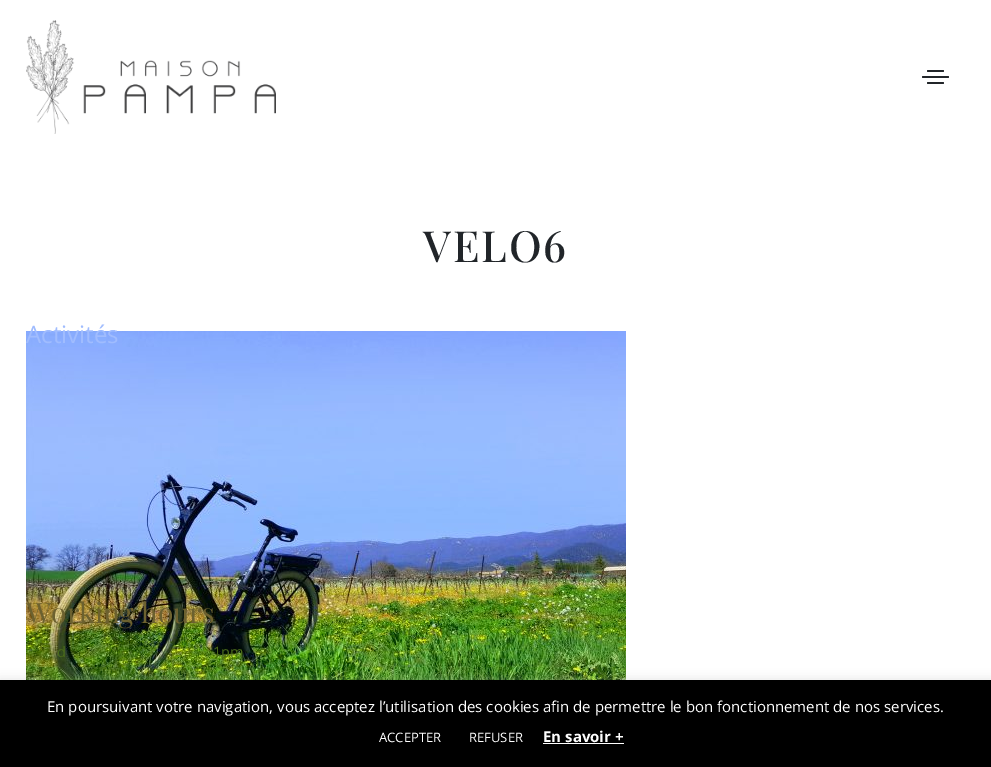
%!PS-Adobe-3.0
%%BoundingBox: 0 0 991 767
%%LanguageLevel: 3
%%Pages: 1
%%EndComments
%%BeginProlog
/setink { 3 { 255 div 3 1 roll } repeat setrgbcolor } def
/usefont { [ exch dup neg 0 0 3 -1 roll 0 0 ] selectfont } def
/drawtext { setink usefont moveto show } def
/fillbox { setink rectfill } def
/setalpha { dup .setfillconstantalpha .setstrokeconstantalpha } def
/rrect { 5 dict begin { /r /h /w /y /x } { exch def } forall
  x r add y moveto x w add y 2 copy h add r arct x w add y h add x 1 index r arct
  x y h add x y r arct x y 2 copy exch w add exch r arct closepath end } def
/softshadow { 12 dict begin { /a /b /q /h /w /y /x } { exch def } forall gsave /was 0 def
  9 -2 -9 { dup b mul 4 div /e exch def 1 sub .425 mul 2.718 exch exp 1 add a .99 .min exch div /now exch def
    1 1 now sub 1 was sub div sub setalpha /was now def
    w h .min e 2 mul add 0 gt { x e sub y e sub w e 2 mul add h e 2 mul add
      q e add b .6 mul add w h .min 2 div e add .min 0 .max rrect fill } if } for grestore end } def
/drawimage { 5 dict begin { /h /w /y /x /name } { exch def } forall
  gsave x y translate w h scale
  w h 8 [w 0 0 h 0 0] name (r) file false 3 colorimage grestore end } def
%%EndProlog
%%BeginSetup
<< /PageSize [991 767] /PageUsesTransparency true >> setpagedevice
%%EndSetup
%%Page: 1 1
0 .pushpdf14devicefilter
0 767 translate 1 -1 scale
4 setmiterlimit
0 0 991 767 255 255 255 fillbox
(assets/img1.rgb) 26 20 250 114 drawimage
33 37 41 setink
927 70 17 2 1 rrect fill
922 76 27 2 1 rrect fill
927 82 17 2 1 rrect fill
/PlayfairDisplay-Medium 43 usefont
423 262 moveto 2 0 (VELO6) ashow
(assets/img2.rgb) 26 331 600 349 drawimage
(Activités) 26 343 /OpenSans-Regular 24 160 188 254 drawtext
(Working hours) 26 623 /PlayfairDisplay-Regular 28 108 97 47 drawtext
(d) 57 657 /OpenSans-Regular 14.5 74 106 27 drawtext
(1pm) 213 657 /OpenSans-Regular 14.5 74 106 27 drawtext
172 171 171 setink
0 679 991 87 0 5 0.3 softshadow
0 680 991 87 0 0 0 fillbox
(En poursuivant votre navigation, vous acceptez l’utilisation des cookies afin de permettre le bon fonctionnement de nos services.) 47 712 /OpenSans-Regular 15 255 255 255 drawtext
(ACCEPTER) 379 742 /OpenSans-Regular 13 255 255 255 drawtext
(REFUSER) 469 742 /OpenSans-Regular 13 255 255 255 drawtext
(En savoir +) 543 742 /OpenSans-Bold 15 255 255 255 drawtext
543 743 81 1 255 255 255 fillbox
.poppdf14devicefilter showpage
%%EOF
